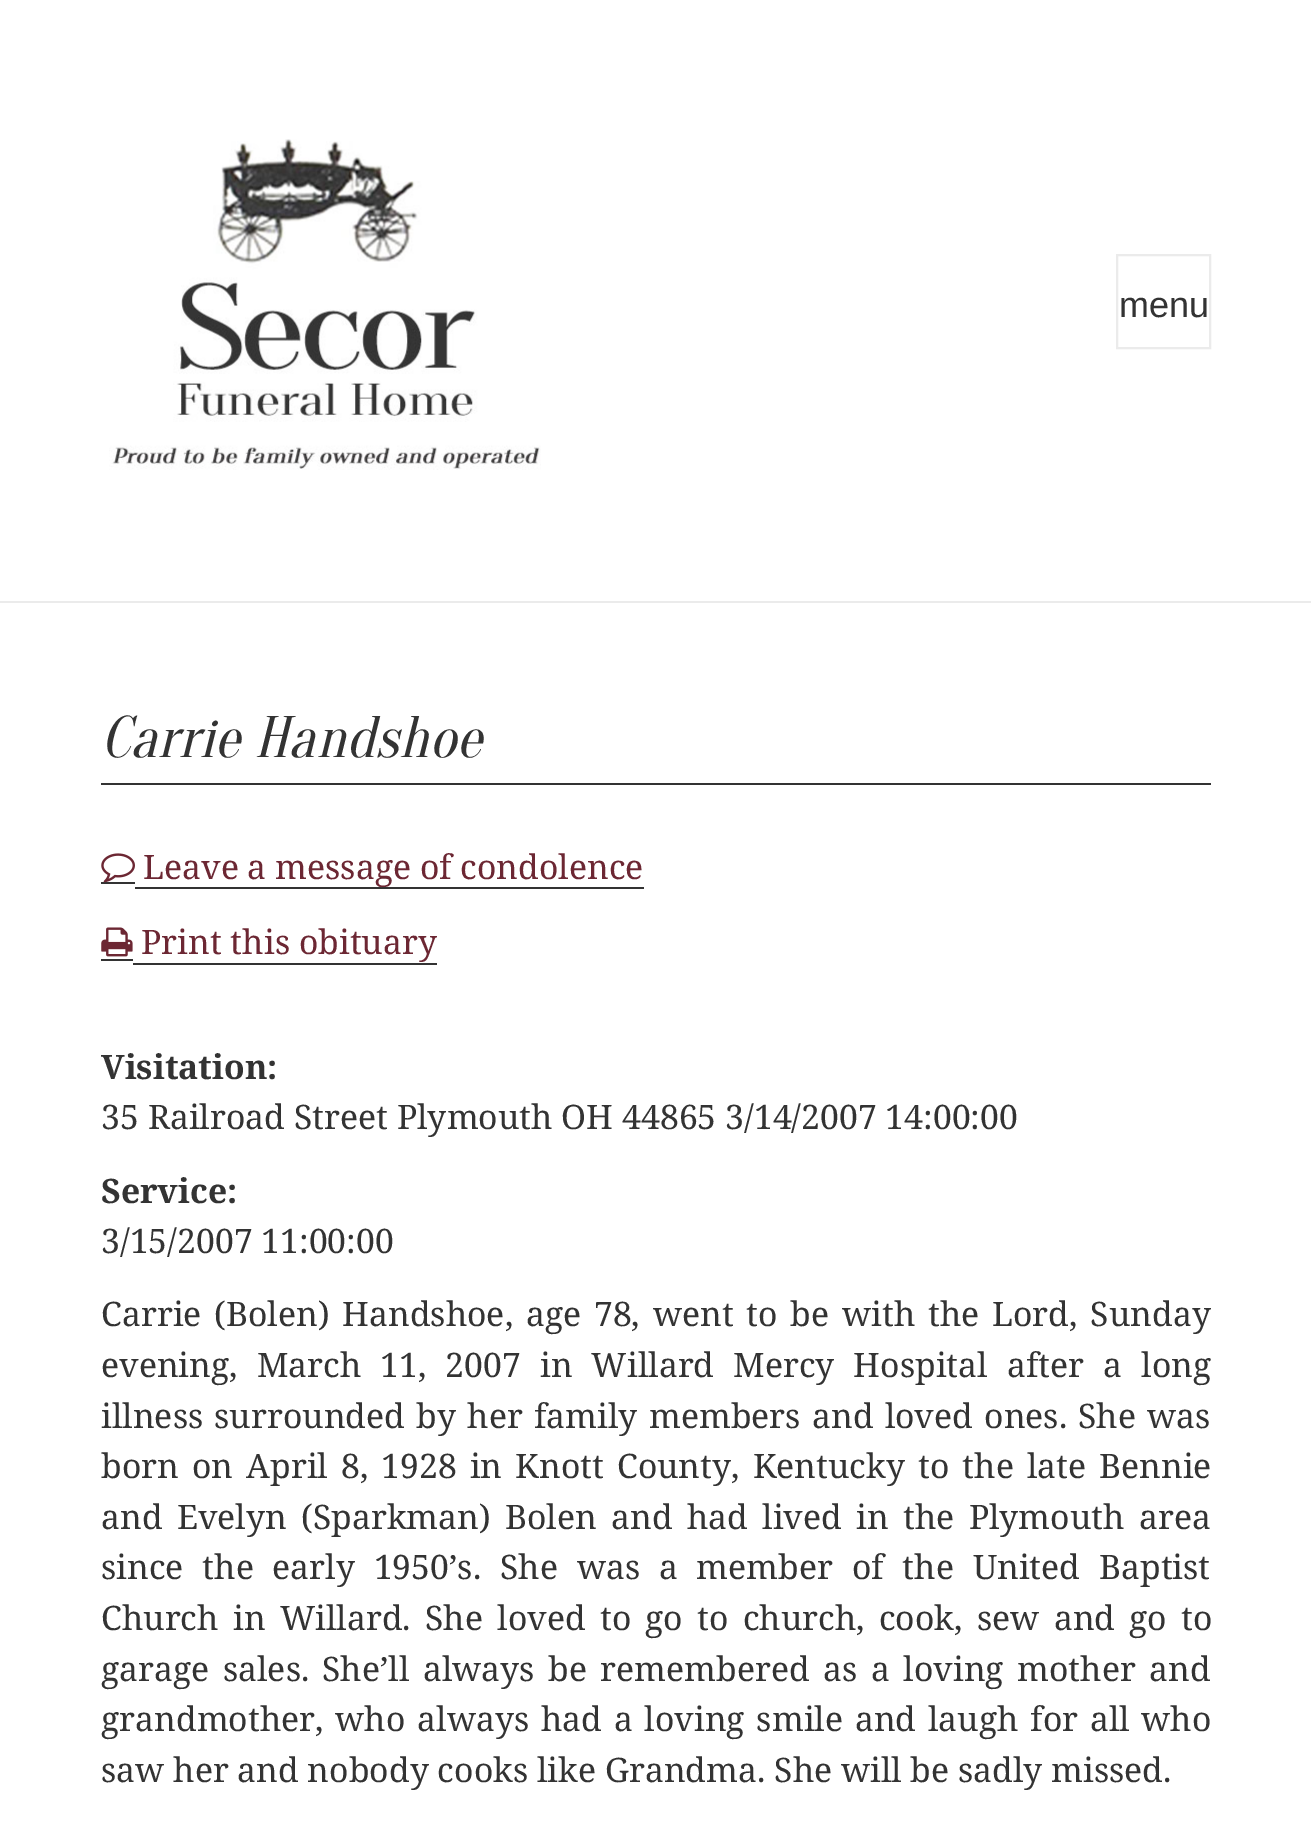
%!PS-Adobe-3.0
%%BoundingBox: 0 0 1311 1821
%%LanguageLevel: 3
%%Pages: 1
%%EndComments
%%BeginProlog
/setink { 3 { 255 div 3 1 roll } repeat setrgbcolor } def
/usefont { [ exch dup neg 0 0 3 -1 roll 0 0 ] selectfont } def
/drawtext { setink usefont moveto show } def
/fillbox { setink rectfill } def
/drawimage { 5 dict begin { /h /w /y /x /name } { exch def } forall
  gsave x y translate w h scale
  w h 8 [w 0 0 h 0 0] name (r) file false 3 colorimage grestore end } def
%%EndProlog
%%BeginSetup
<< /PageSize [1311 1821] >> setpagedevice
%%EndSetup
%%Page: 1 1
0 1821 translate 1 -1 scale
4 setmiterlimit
0 0 1311 1821 255 255 255 fillbox
0 601 1311 2 235 235 235 fillbox
(assets/img1.rgb) 109 139 432 331 drawimage
2 setlinewidth
1117 255 93 93 rectstroke
(menu) 1119 317 /LiberationSans-Regular 36 51 51 51 drawtext
101 783 1110 2 51 51 51 fillbox
(Carrie Handshoe) 101 757 /Oranienbaum-Italic 58.5 51 51 51 drawtext
101 882 34 2 51 51 51 fillbox
135 887 509 2 51 51 51 fillbox
(assets/img2.rgb) 101 853 34 30 drawimage
(Leave a message of condolence) 143 879 /NotoSerif-Regular 33.75 108 39 51 drawtext
101 959 32 2 51 51 51 fillbox
133 963 304 2 51 51 51 fillbox
(assets/img3.rgb) 101 927 32 30 drawimage
(Print this obituary) 141 954 /NotoSerif-Regular 33.75 108 39 51 drawtext
(Visitation:) 101 1079 /NotoSerif-Bold 33.75 51 51 51 drawtext
(35 Railroad Street Plymouth OH 44865 3/14/2007 14:00:00) 101 1129 /NotoSerif-Regular 33.75 51 51 51 drawtext
(Service:) 101 1203 /NotoSerif-Bold 33.75 51 51 51 drawtext
(3/15/2007 11:00:00) 101 1253 /NotoSerif-Regular 33.75 51 51 51 drawtext
101 1326 moveto 4 0 32 (Carrie \(Bolen\) Handshoe, age 78, went to be with the Lord, Sunday) widthshow
101 1377 moveto 10.25 0 32 (evening, March 11, 2007 in Willard Mercy Hospital after a long) widthshow
101 1428 moveto 2.5 0 32 (illness surrounded by her family members and loved ones.) widthshow
1078 1428 moveto 2.5 0 32 (She was) widthshow
101 1478 moveto 4.25 0 32 (born on April 8, 1928 in Knott County, Kentucky to the late Bennie) widthshow
101 1529 moveto 5.5 0 32 (and Evelyn \(Sparkman\) Bolen and had lived in the Plymouth area) widthshow
101 1579 moveto 10 0 32 (since the early 1950’s.) widthshow
500 1579 moveto 10 0 32 (She was a member of the United Baptist) widthshow
101 1630 moveto 5.5 0 32 (Church in Willard.) widthshow
425 1630 moveto 5.5 0 32 (She loved to go to church, cook, sew and go to) widthshow
101 1681 moveto 4.75 0 32 (garage sales.) widthshow
322 1681 moveto 4.75 0 32 (She’ll always be remembered as a loving mother and) widthshow
101 1731 moveto 3 0 32 (grandmother, who always had a loving smile and laugh for all who) widthshow
(saw her and nobody cooks like Grandma. She will be sadly missed.) 101 1782 /NotoSerif-Regular 33.75 51 51 51 drawtext
showpage
%%EOF
